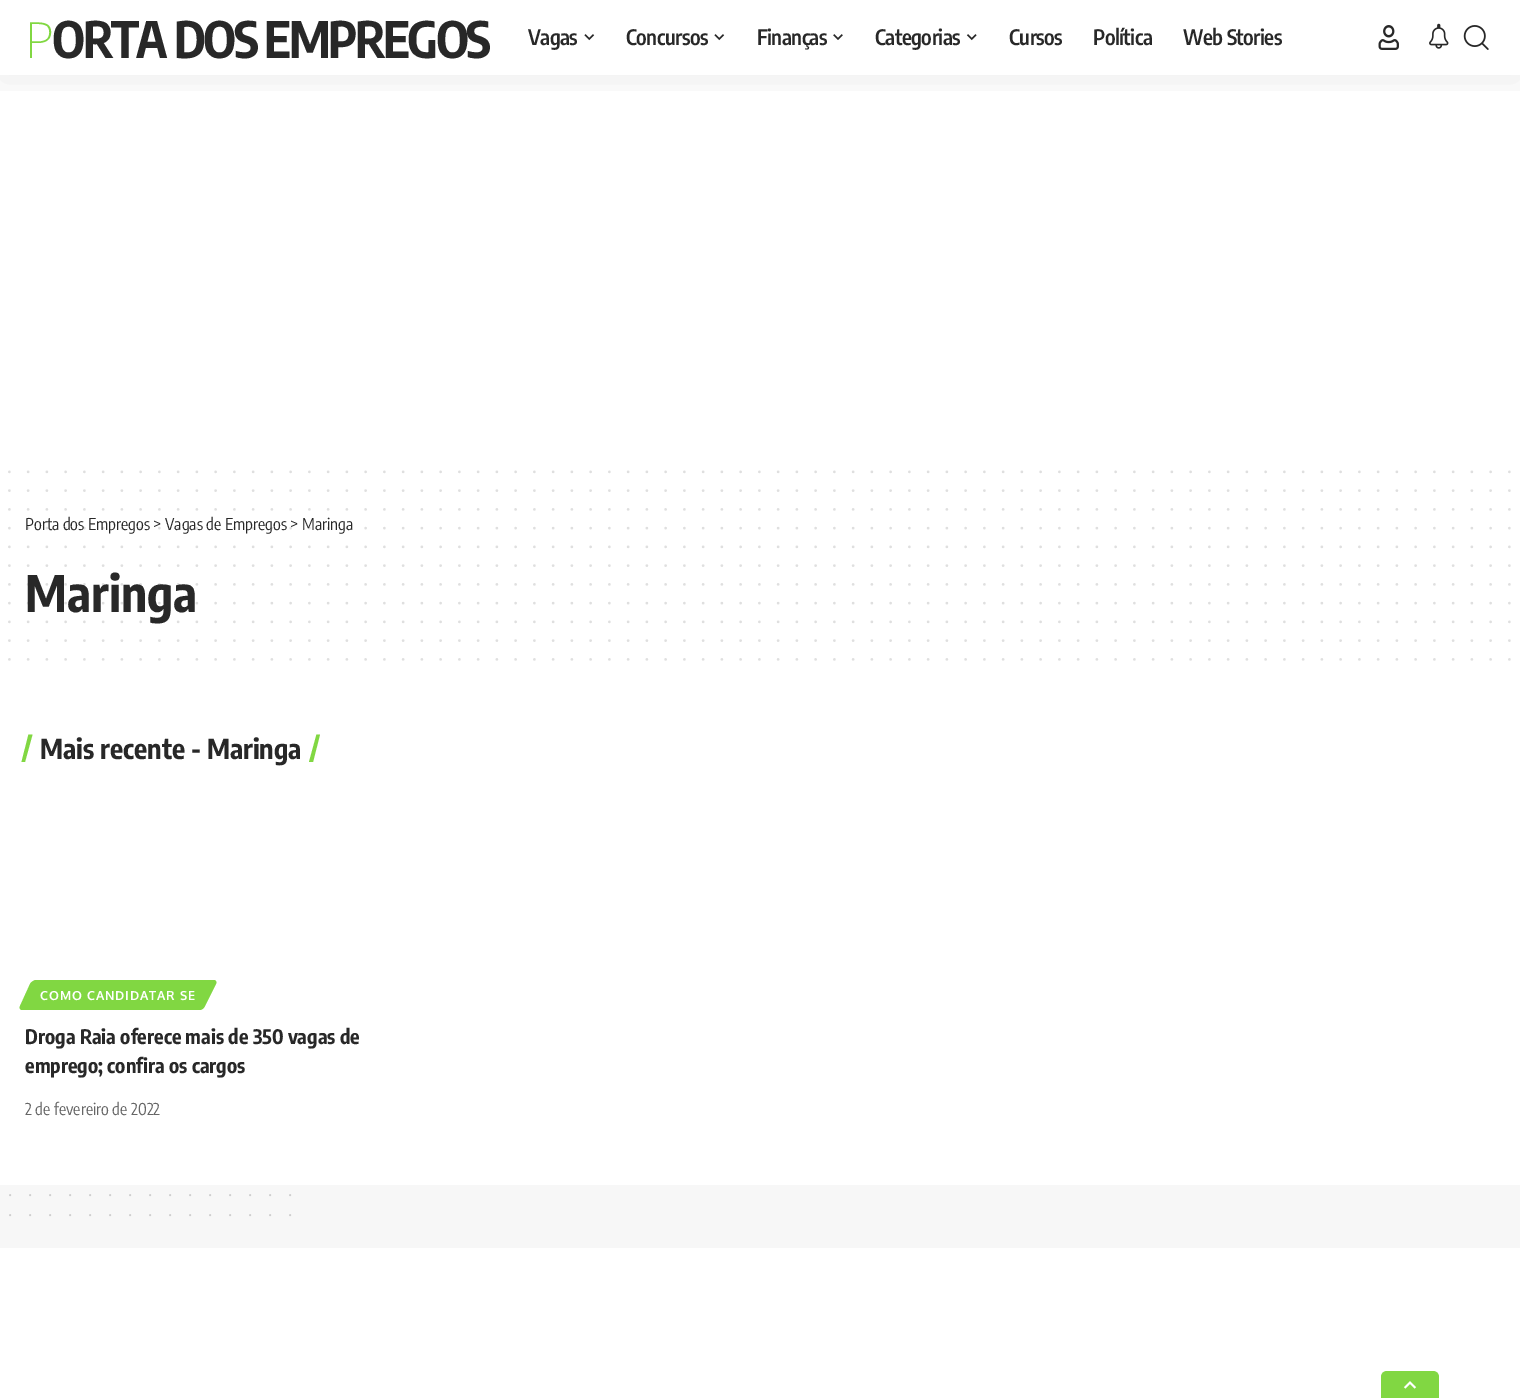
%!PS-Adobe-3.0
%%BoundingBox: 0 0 1520 1398
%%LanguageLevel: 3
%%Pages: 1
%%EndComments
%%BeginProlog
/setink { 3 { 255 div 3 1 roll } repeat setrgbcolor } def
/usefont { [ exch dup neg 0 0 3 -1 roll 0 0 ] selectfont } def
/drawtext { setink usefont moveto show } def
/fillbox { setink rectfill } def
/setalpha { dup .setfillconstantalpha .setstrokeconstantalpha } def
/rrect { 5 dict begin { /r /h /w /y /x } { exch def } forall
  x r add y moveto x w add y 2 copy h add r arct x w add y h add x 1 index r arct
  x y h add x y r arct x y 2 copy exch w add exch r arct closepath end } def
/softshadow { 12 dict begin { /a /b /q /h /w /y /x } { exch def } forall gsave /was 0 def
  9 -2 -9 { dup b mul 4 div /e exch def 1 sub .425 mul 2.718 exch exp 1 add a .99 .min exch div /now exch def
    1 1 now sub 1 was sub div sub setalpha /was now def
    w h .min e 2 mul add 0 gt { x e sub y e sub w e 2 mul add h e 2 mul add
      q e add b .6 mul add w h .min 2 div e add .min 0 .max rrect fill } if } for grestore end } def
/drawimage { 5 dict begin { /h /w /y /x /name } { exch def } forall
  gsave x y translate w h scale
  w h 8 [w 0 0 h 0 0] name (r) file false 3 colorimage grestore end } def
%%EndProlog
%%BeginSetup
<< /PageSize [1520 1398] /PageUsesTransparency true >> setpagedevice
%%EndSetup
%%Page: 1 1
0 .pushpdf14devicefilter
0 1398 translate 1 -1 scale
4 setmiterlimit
0 0 1520 1398 255 255 255 fillbox
gsave
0 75 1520 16 rectclip
0 0 0 setink
0 5 1520 75 0 19 0.07 softshadow
grestore
/NotoSans-ExtraLight 50 usefont
129 215 66 setink
25 58 moveto -2.5 0 (P) ashow
/EncodeSansCondensed-Bold 50 usefont
40 40 40 setink
52 58 moveto -2.5 0 (ORTA DOS EMPREGOS) ashow
/EncodeSansCondensed-SemiBold 21.25 usefont
528 45 moveto -0.5 0 (Vagas) ashow
(assets/img1.rgb) 584 34 11 7 drawimage
626 45 moveto -0.5 0 (Concursos) ashow
(assets/img1.rgb) 714 34 11 7 drawimage
757 45 moveto -0.5 0 (Finanças) ashow
(assets/img2.rgb) 833 34 10 6 drawimage
875 45 moveto -0.5 0 (Categorias) ashow
(assets/img3.rgb) 966 34 11 7 drawimage
1009 45 moveto -0.5 0 (Cursos) ashow
1093 45 moveto -0.5 0 (Política) ashow
1183 45 moveto -0.5 0 (Web Stories) ashow
(assets/img4.rgb) 1378 25 21 25 drawimage
(assets/img5.rgb) 1429 23 20 26 drawimage
(assets/img6.rgb) 1463 25 26 25 drawimage
223 223 223 setink
2.5 setlinewidth
1 setlinecap
[0 18.75] 0 setdash
9.4 471.9 moveto 1509.6 471.9 lineto stroke
9.4 490.6 moveto 1509.6 490.6 lineto stroke
9.4 509.4 moveto 1509.6 509.4 lineto stroke
9.4 528.1 moveto 1509.6 528.1 lineto stroke
9.4 546.9 moveto 1509.6 546.9 lineto stroke
9.4 565.6 moveto 1509.6 565.6 lineto stroke
9.4 584.4 moveto 1509.6 584.4 lineto stroke
9.4 603.1 moveto 1509.6 603.1 lineto stroke
9.4 621.9 moveto 1509.6 621.9 lineto stroke
9.4 640.6 moveto 1509.6 640.6 lineto stroke
9.4 659.4 moveto 1509.6 659.4 lineto stroke
(Porta dos Empregos > Vagas de Empregos > Maringa) 25 530 /EncodeSansCondensed-Regular 16.25 40 40 40 drawtext
(Maringa) 25 612 /EncodeSansCondensed-Bold 50 40 40 40 drawtext
129 215 66 setink
316.5 734.5 moveto 320 734.5 lineto 313 762 lineto 309 762 lineto closepath fill
28.5 734.5 moveto 32.5 734.5 lineto 25 762 lineto 21.5 762 lineto closepath fill
(Mais recente - Maringa) 40 759 /EncodeSansCondensed-Bold 27.5 40 40 40 drawtext
129 215 66 setink
36 980 moveto 214 980 lineto 216 980 217 982 216 984 curveto 205 1006 lineto 204 1008 202 1010 200 1010 curveto 22 1010 lineto 20 1010 19 1008 20 1006 curveto 30 984 lineto 31 982 34 980 36 980 curveto closepath fill
/Oxygen-Bold 12.5 usefont
255 255 255 setink
40 1000 moveto 0.9 0 (COMO CANDIDATAR SE) ashow
(Droga Raia oferece mais de 350 vagas de) 25 1044 /EncodeSansCondensed-Bold 20 40 40 40 drawtext
(emprego; confira os cargos) 25 1073 /EncodeSansCondensed-Bold 20 40 40 40 drawtext
(2 de fevereiro de 2022) 25 1115 /EncodeSansCondensed-Regular 16.25 102 102 102 drawtext
0 1185 1520 63 247 247 247 fillbox
206 206 206 setink
1.9 setlinewidth
[0 20] 0 setdash
10 1195 moveto 290.2 1195 lineto stroke
10 1215 moveto 290.2 1215 lineto stroke
129 215 66 setink
1387 1371 moveto 1433 1371 lineto 1436.5 1371 1439 1373.5 1439 1377 curveto 1439 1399 lineto 1381 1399 lineto 1381 1377 lineto 1381 1373.5 1383.5 1371 1387 1371 curveto closepath fill
(assets/img7.rgb) 1403 1381 14 8 drawimage
.poppdf14devicefilter showpage
%%EOF
